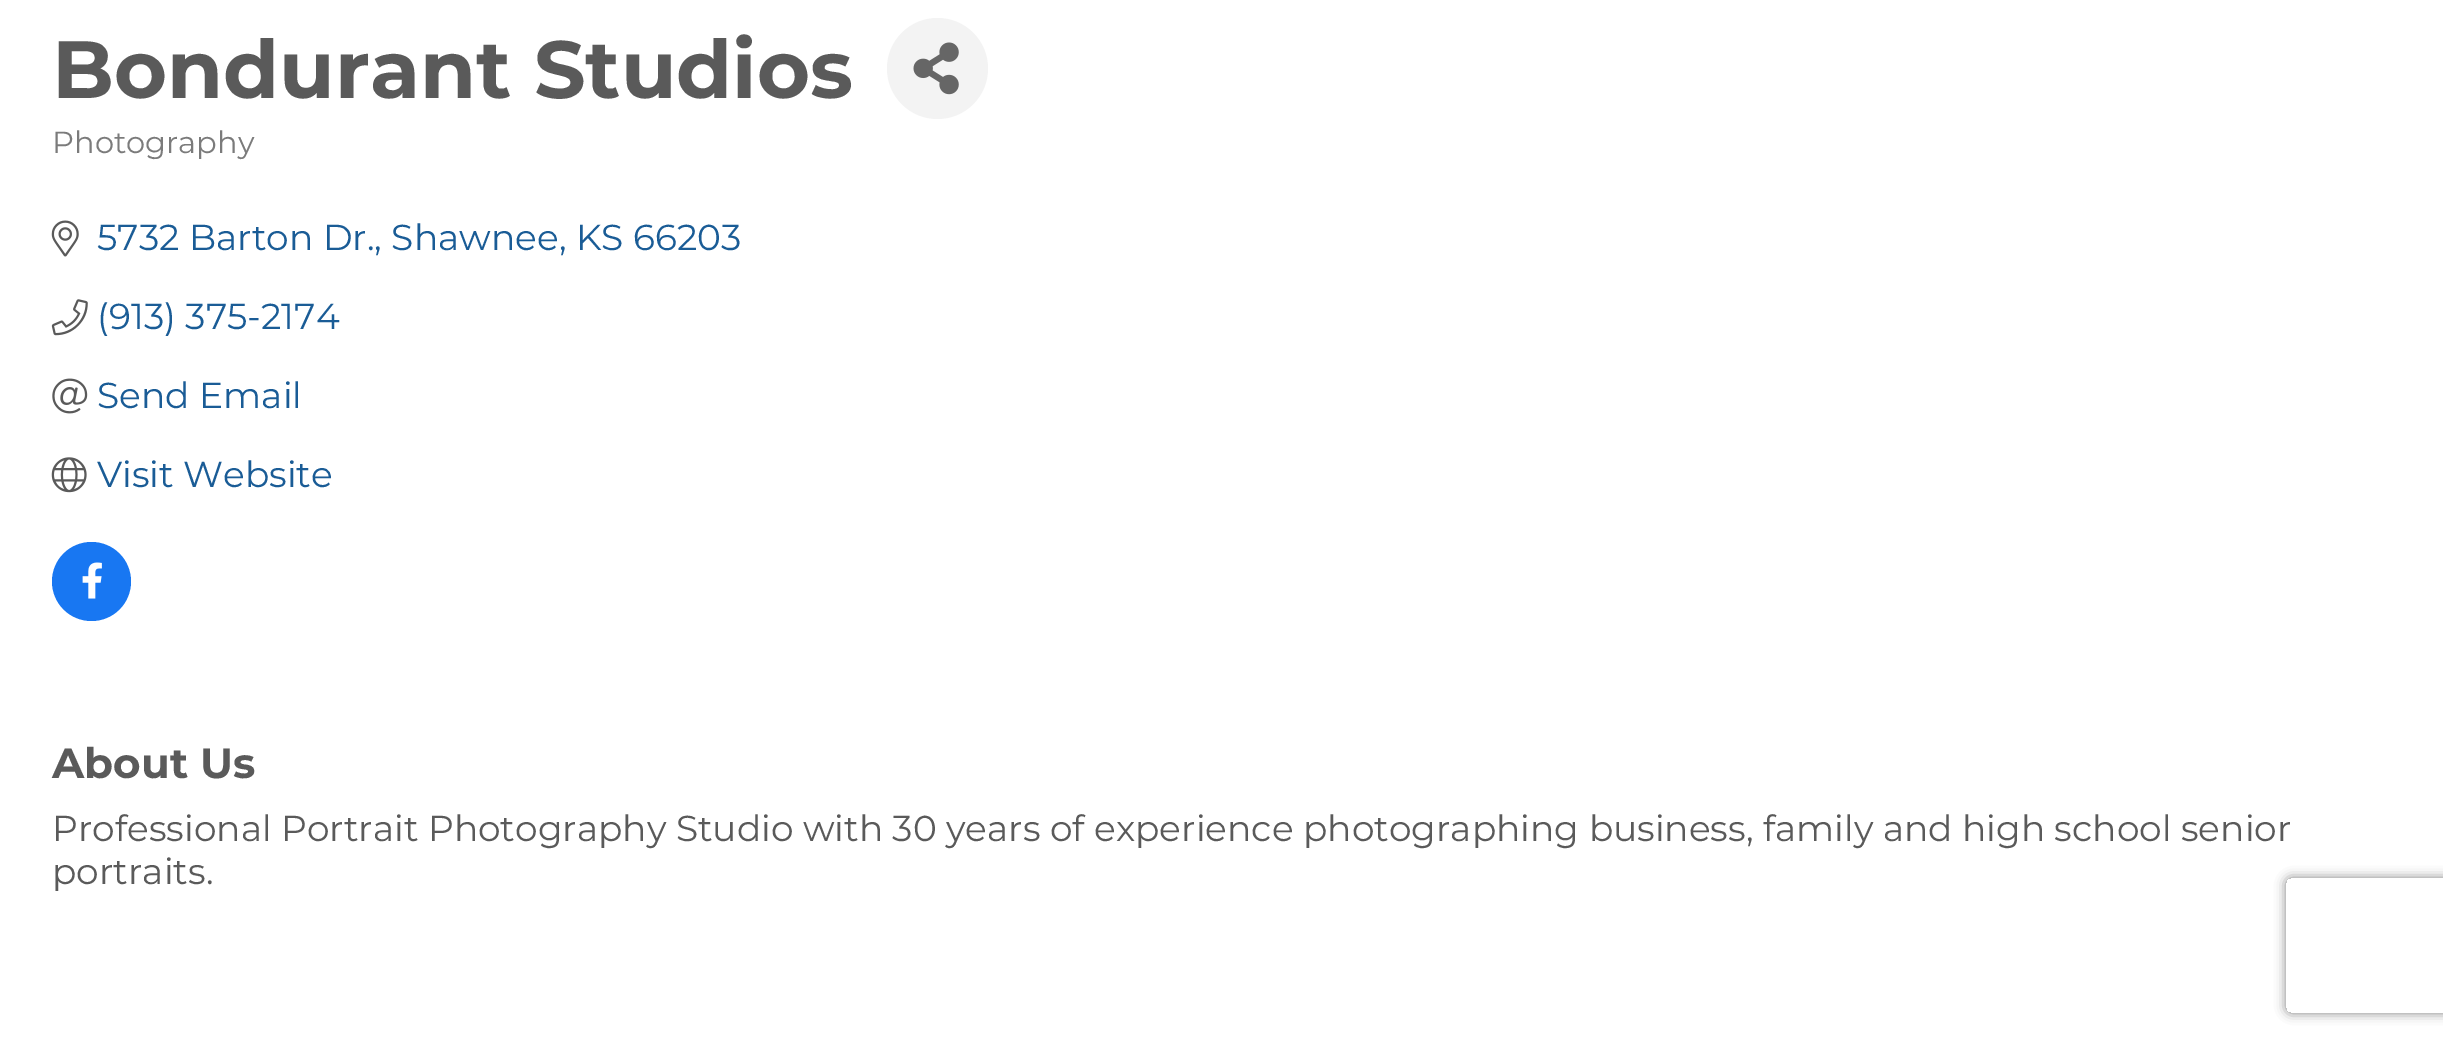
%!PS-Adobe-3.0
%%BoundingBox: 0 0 2443 1043
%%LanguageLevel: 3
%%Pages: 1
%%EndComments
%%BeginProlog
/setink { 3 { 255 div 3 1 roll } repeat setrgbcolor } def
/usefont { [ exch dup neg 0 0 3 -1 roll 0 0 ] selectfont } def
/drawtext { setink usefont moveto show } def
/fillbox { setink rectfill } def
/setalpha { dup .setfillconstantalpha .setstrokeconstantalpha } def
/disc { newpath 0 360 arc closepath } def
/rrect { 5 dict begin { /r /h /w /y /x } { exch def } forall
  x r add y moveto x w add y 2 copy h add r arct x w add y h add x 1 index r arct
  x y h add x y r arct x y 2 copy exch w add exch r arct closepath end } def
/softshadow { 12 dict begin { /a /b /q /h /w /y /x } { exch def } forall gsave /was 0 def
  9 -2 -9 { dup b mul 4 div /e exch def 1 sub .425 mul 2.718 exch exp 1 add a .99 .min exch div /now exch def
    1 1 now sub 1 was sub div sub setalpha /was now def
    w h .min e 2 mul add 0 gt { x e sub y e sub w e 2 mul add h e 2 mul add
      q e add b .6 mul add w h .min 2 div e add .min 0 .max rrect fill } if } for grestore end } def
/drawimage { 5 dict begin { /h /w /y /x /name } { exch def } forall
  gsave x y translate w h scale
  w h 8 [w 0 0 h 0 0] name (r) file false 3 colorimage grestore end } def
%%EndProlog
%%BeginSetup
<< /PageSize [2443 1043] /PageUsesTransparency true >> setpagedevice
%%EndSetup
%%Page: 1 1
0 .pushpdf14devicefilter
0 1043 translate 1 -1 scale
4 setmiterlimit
0 0 2443 1043 255 255 255 fillbox
(Bondurant Studios) 52 98 /Montserrat-Bold 81 90 90 90 drawtext
243 243 243 setink
937.5 68.5 50.5 disc fill
(assets/img1.rgb) 913 42 46 53 drawimage
(Photography) 52 153 /Montserrat-Regular 30.5 123 123 123 drawtext
(assets/img2.rgb) 51 220 28 37 drawimage
(5732 Barton Dr., Shawnee, KS 66203) 97 250 /Montserrat-Regular 36 26 92 150 drawtext
(assets/img3.rgb) 51 299 37 37 drawimage
(\(913\) 375-2174) 97 329 /Montserrat-Regular 36 26 92 150 drawtext
(assets/img4.rgb) 52 378 36 36 drawimage
(Send Email) 97 408 /Montserrat-Regular 36 26 92 150 drawtext
(assets/img5.rgb) 51 457 36 36 drawimage
(Visit Website) 97 487 /Montserrat-Regular 36 26 92 150 drawtext
24 119 242 setink
91.5 581.5 39.5 disc fill
(assets/img6.rgb) 82 562 20 37 drawimage
(About Us) 52 778 /Montserrat-Bold 42 90 90 90 drawtext
(Professional Portrait Photography Studio with 30 years of experience photographing business, family and high school senior) 52 841 /Montserrat-Regular 36 90 90 90 drawtext
(portraits.) 52 884 /Montserrat-Regular 36 90 90 90 drawtext
gsave
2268 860 moveto 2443 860 lineto 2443 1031 lineto 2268 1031 lineto closepath 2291 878 moveto 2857 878 lineto 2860 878 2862 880 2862 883 curveto 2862 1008 lineto 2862 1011 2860 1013 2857 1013 curveto 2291 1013 lineto 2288 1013 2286 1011 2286 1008 curveto 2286 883 lineto 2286 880 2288 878 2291 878 curveto closepath eoclip newpath
128 128 128 setink
2286 878 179 135 5 5.5 1 softshadow
grestore
.poppdf14devicefilter showpage
%%EOF
